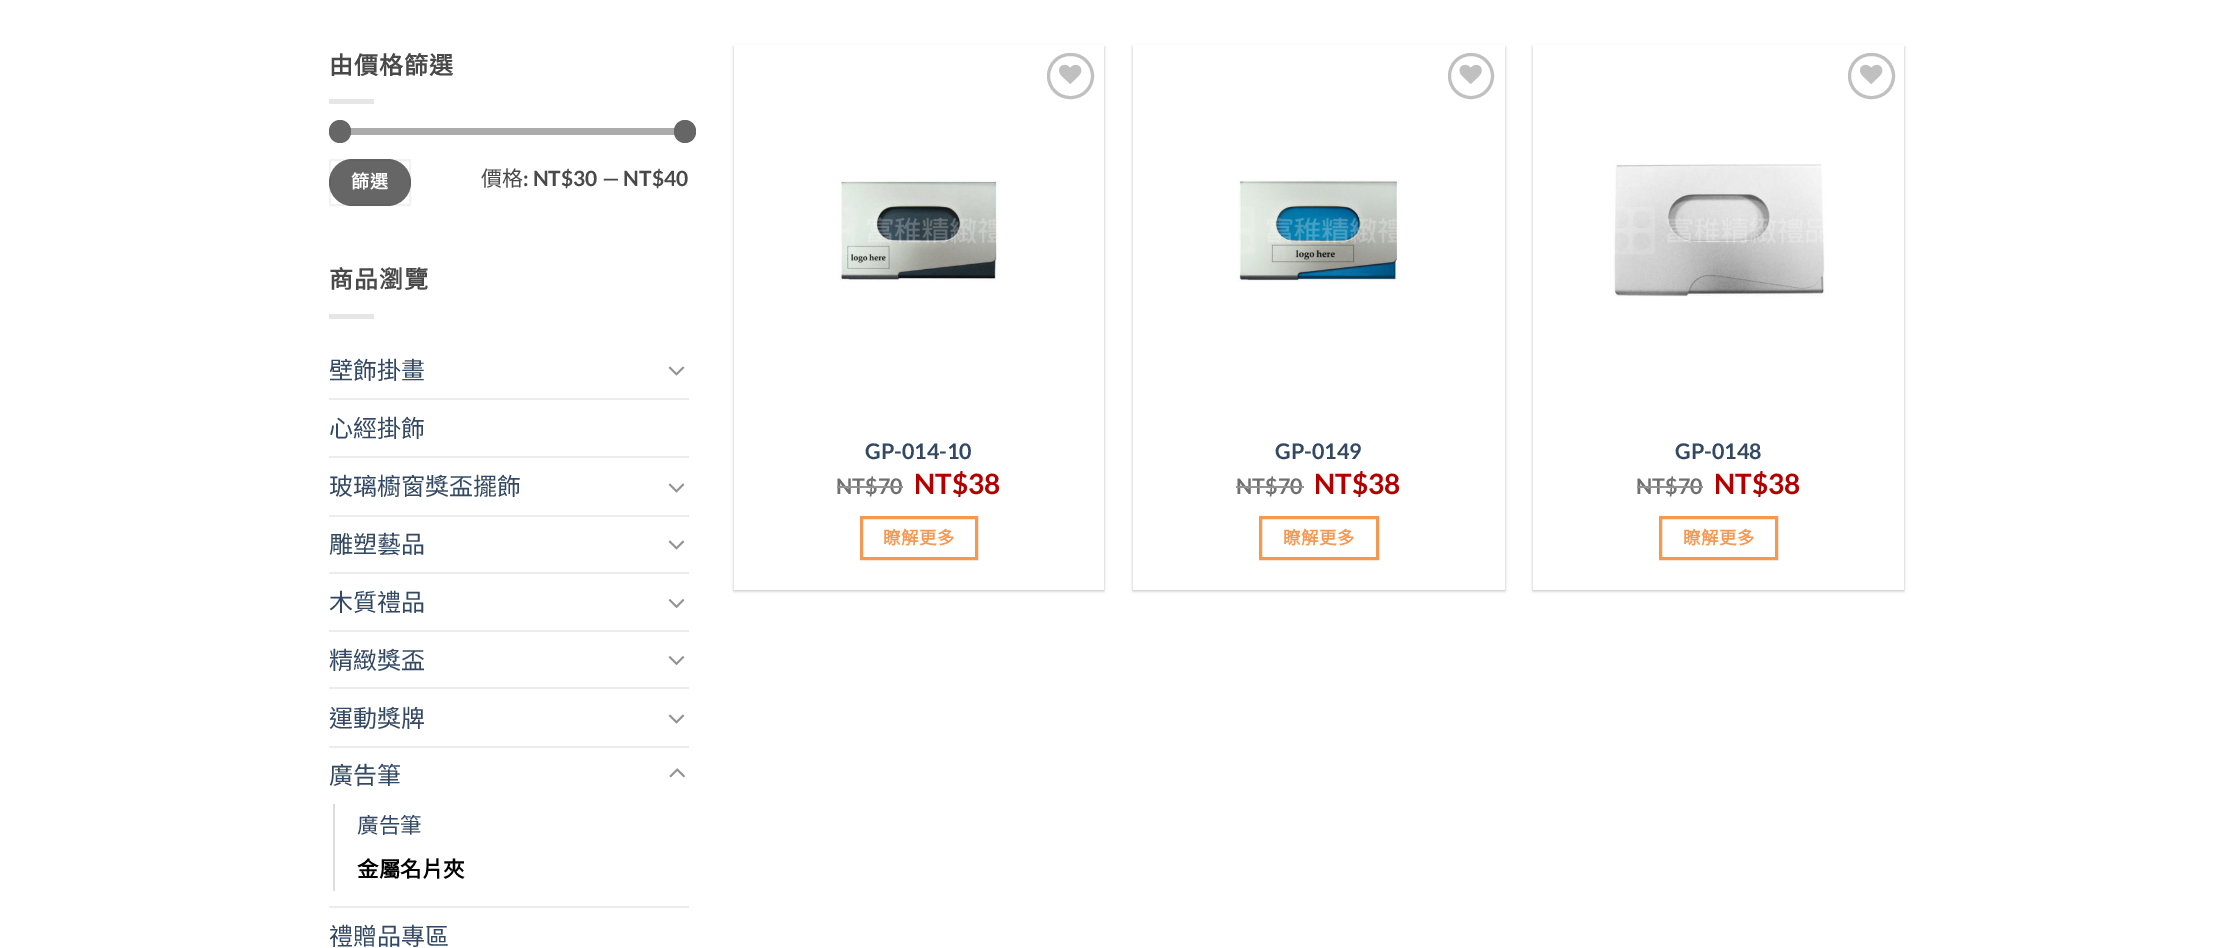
%!PS-Adobe-3.0
%%BoundingBox: 0 0 2231 948
%%LanguageLevel: 3
%%Pages: 1
%%EndComments
%%BeginProlog
/setink { 3 { 255 div 3 1 roll } repeat setrgbcolor } def
/usefont { [ exch dup neg 0 0 3 -1 roll 0 0 ] selectfont } def
/drawtext { setink usefont moveto show } def
/fillbox { setink rectfill } def
/setalpha { dup .setfillconstantalpha .setstrokeconstantalpha } def
/disc { newpath 0 360 arc closepath } def
/rrect { 5 dict begin { /r /h /w /y /x } { exch def } forall
  x r add y moveto x w add y 2 copy h add r arct x w add y h add x 1 index r arct
  x y h add x y r arct x y 2 copy exch w add exch r arct closepath end } def
/softshadow { 12 dict begin { /a /b /q /h /w /y /x } { exch def } forall gsave /was 0 def
  9 -2 -9 { dup b mul 4 div /e exch def 1 sub .425 mul 2.718 exch exp 1 add a .99 .min exch div /now exch def
    1 1 now sub 1 was sub div sub setalpha /was now def
    w h .min e 2 mul add 0 gt { x e sub y e sub w e 2 mul add h e 2 mul add
      q e add b .6 mul add w h .min 2 div e add .min 0 .max rrect fill } if } for grestore end } def
/drawimage { 5 dict begin { /h /w /y /x /name } { exch def } forall
  gsave x y translate w h scale
  w h 8 [w 0 0 h 0 0] name (r) file false 3 colorimage grestore end } def
%%EndProlog
%%BeginSetup
<< /PageSize [2231 948] /PageUsesTransparency true >> setpagedevice
%%EndSetup
%%Page: 1 1
0 .pushpdf14devicefilter
0 948 translate 1 -1 scale
4 setmiterlimit
0 0 2231 948 255 255 255 fillbox
/NotoSansCJKTC-Bold 24 usefont
73 73 73 setink
329 74 moveto 1 0 (由價格篩選) ashow
329 99 45 5 230 230 230 fillbox
241 241 241 setink
329 128 360 7 3.5 rrect fill
0.5 setalpha
102 102 102 setink
329 128 360 7 3.5 rrect fill
1 setalpha
329 120 22 23 11 rrect fill
674 120 22 23 11 rrect fill
329 159 82 47 23.5 rrect fill
0.05 setalpha
0 0 0 setink
2 setlinewidth
330 160 80 45 rectstroke
/NotoSansCJKTC-Bold 18 usefont
1 setalpha
255 255 255 setink
351 188 moveto 1 0 (篩選) ashow
(價格) 481 186 /NotoSansCJKTC-Regular 21 73 73 73 drawtext
(: NT$30 — NT$40) 523 186 /Lato-Bold 21 73 73 73 drawtext
/NotoSansCJKTC-Bold 24 usefont
329 288 moveto 1 0 (商品瀏覽) ashow
329 314 45 5 230 230 230 fillbox
(壁飾掛畫) 329 379 /NotoSansCJKTC-Regular 24 51 72 98 drawtext
(assets/img1.rgb) 668 366 17 10 drawimage
329 398 360 2 236 236 236 fillbox
(心經掛飾) 329 437 /NotoSansCJKTC-Regular 24 51 72 98 drawtext
329 456 360 2 236 236 236 fillbox
(玻璃櫥窗獎盃擺飾) 329 495 /NotoSansCJKTC-Regular 24 51 72 98 drawtext
(assets/img1.rgb) 668 483 17 10 drawimage
329 515 360 2 236 236 236 fillbox
(雕塑藝品) 329 553 /NotoSansCJKTC-Regular 24 51 72 98 drawtext
(assets/img1.rgb) 668 540 17 10 drawimage
329 572 360 2 236 236 236 fillbox
(木質禮品) 329 611 /NotoSansCJKTC-Regular 24 51 72 98 drawtext
(assets/img2.rgb) 668 599 17 9 drawimage
329 630 360 2 236 236 236 fillbox
(精緻獎盃) 329 669 /NotoSansCJKTC-Regular 24 51 72 98 drawtext
(assets/img2.rgb) 668 656 17 9 drawimage
329 687 360 2 236 236 236 fillbox
(運動獎牌) 329 727 /NotoSansCJKTC-Regular 24 51 72 98 drawtext
(assets/img1.rgb) 668 714 17 10 drawimage
329 746 360 2 236 236 236 fillbox
(廣告筆) 329 784 /NotoSansCJKTC-Regular 24 51 72 98 drawtext
(assets/img3.rgb) 669 768 16 10 drawimage
333 804 2 87 221 221 221 fillbox
(廣告筆) 357 833 /NotoSansCJKTC-Regular 21.5 51 72 98 drawtext
(金屬名片夾) 357 877 /NotoSansCJKTC-Bold 21.5 0 0 0 drawtext
329 906 360 2 236 236 236 fillbox
(禮贈品專區) 329 945 /NotoSansCJKTC-Regular 24 51 72 98 drawtext
0 0 0 setink
734 47 370 544 0 1.5 0.24 softshadow
734 45 370 545 255 255 255 fillbox
192 192 192 setink
3 setlinewidth
1048.5 54.5 44 43 21.5 rrect stroke
(assets/img4.rgb) 1059 64 23 20 drawimage
(assets/img5.rgb) 838 180 162 102 drawimage
(GP-014-10) 865 459 /Lato-Bold 21.5 51 72 98 drawtext
(NT$70) 836 494 /Lato-Bold 21.5 112 112 112 drawtext
837 486 66 2 146 146 146 fillbox
(NT$38) 914 494 /Lato-Bold 28 178 0 0 drawtext
243 153 84 setink
861.5 517.5 115 41 rectstroke
/NotoSansCJKTC-Bold 17.5 usefont
883 544 moveto 0.5 0 (瞭解更多) ashow
0 0 0 setink
1133 47 372 544 0 1.5 0.24 softshadow
1133 45 372 545 255 255 255 fillbox
192 192 192 setink
1471 76 21.5 disc stroke
(assets/img6.rgb) 1459 64 23 20 drawimage
(assets/img7.rgb) 1237 178 163 104 drawimage
(GP-0149) 1275 459 /Lato-Bold 21.5 51 72 98 drawtext
(NT$70) 1236 494 /Lato-Bold 21.5 112 112 112 drawtext
1236 486 68 2 146 146 146 fillbox
(NT$38) 1314 494 /Lato-Bold 28 178 0 0 drawtext
243 153 84 setink
1260.5 517.5 117 41 rectstroke
/NotoSansCJKTC-Bold 17.5 usefont
1283 544 moveto 0.5 0 (瞭解更多) ashow
0 0 0 setink
1533 47 371 544 0 1.5 0.24 softshadow
1533 45 371 545 255 255 255 fillbox
192 192 192 setink
1849.5 54.5 44 43 21.5 rrect stroke
(assets/img4.rgb) 1860 64 23 20 drawimage
(assets/img8.rgb) 1613 164 212 133 drawimage
(GP-0148) 1675 459 /Lato-Bold 21.5 51 72 98 drawtext
(NT$70) 1636 494 /Lato-Bold 21.5 112 112 112 drawtext
1637 486 66 2 146 146 146 fillbox
(NT$38) 1714 494 /Lato-Bold 28 178 0 0 drawtext
243 153 84 setink
1660.5 517.5 116 41 rectstroke
/NotoSansCJKTC-Bold 17.5 usefont
1683 544 moveto 0.5 0 (瞭解更多) ashow
.poppdf14devicefilter showpage
%%EOF
